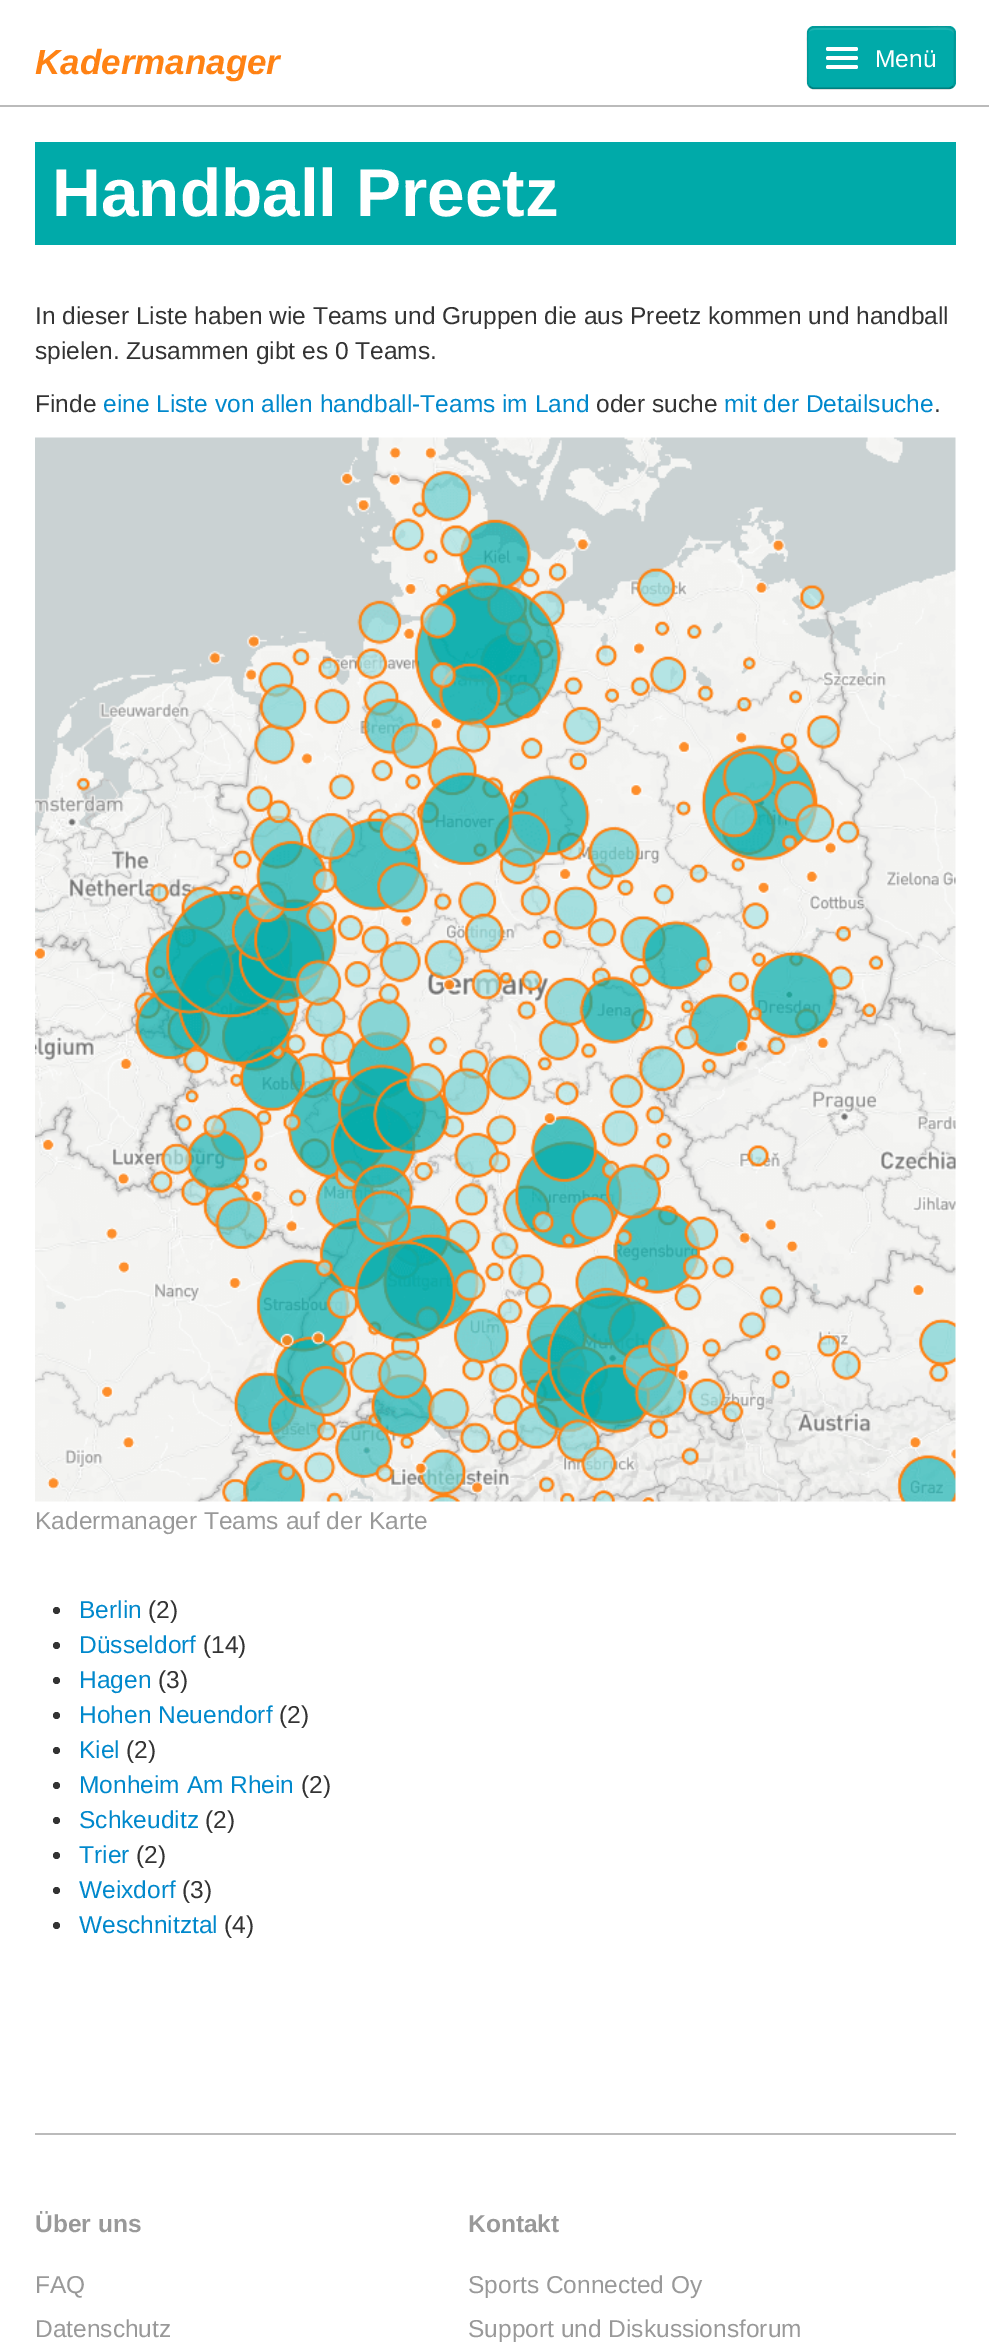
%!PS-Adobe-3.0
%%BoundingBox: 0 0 989 2344
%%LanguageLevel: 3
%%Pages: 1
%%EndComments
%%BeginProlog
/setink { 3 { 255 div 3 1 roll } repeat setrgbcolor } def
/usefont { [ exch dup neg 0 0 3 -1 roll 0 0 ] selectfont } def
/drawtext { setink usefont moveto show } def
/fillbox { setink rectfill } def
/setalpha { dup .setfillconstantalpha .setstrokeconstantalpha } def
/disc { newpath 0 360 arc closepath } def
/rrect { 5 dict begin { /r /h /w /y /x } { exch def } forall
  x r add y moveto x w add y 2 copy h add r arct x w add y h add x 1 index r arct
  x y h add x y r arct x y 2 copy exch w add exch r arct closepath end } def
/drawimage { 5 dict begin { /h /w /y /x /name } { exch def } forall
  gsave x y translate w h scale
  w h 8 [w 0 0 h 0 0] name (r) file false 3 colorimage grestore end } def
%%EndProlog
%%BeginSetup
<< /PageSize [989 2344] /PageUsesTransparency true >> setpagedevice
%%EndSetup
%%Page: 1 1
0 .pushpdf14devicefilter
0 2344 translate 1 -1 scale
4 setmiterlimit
0 0 989 2344 255 255 255 fillbox
0 105 989 2 187 187 187 fillbox
(Kadermanager) 35 74 /LiberationSans-BoldItalic 35 255 130 20 drawtext
0 170 169 setink
807 26 149 63 7 rrect fill
26 179 178 setink
814 30 moveto 948 30 lineto 951 30 954 32 954 35 curveto 954 31 lineto 951 24 929 28 926 28 curveto 813 28 lineto 810 30 lineto 809 32 lineto 810 31 812 30 814 30 curveto closepath fill
0.25 setalpha
0 0 0 setink
1.8 setlinewidth
953 86.5 moveto 951.5 87.5 950 88.5 948.5 88.5 curveto 814 88.5 lineto 812 88.5 810.5 87.5 809.5 86.5 curveto stroke
0.1 setalpha
809.5 86.5 moveto 806.5 83.5 807.5 77.5 807.5 74 curveto 807.5 58 lineto 807.5 23 801.5 27 836 27 curveto 926 27 lineto 960.5 27 954.5 23 954.5 58 curveto 954.5 74 lineto 954.5 77.5 956 83.5 953 86.5 curveto stroke
1 setalpha
255 255 255 setink
826 47 32 4 2 rrect fill
826 56 32 4 2 rrect fill
826 65 32 4 2 rrect fill
(Menü) 875 67 /LiberationSans-Regular 24.5 255 255 255 drawtext
35 142 921 103 0 170 169 fillbox
(Handball Preetz) 52 216 /LiberationSans-Bold 67.5 255 255 255 drawtext
(In dieser Liste haben wie Teams und Gruppen die aus Preetz kommen und handball) 35 324 /LiberationSans-Regular 24.5 51 51 51 drawtext
(spielen. Zusammen gibt es 0 Teams.) 35 359 /LiberationSans-Regular 24.5 51 51 51 drawtext
(Finde) 35 412 /LiberationSans-Regular 24.5 51 51 51 drawtext
(eine Liste von allen handball-Teams im Land) 103 412 /LiberationSans-Regular 24.5 0 136 204 drawtext
(oder suche) 596 412 /LiberationSans-Regular 24.5 51 51 51 drawtext
(mit der Detailsuche) 724 412 /LiberationSans-Regular 24.5 0 136 204 drawtext
(.) 934 412 /LiberationSans-Regular 24.5 51 51 51 drawtext
(assets/img1.rgb) 35 437 921 1065 drawimage
(Kadermanager Teams auf der Karte) 35 1529 /LiberationSans-Regular 24.5 153 153 153 drawtext
51 51 51 setink
56.5 1610.5 3.5 disc fill
(Berlin) 79 1618 /LiberationSans-Regular 24.5 0 136 204 drawtext
(\(2\)) 148 1618 /LiberationSans-Regular 24.5 51 51 51 drawtext
56.5 1645.5 3.5 disc fill
(Düsseldorf) 79 1653 /LiberationSans-Regular 24.5 0 136 204 drawtext
(\(14\)) 203 1653 /LiberationSans-Regular 24.5 51 51 51 drawtext
56.5 1680.5 3.5 disc fill
(Hagen) 79 1688 /LiberationSans-Regular 24.5 0 136 204 drawtext
(\(3\)) 158 1688 /LiberationSans-Regular 24.5 51 51 51 drawtext
56.5 1715.5 3.5 disc fill
(Hohen Neuendorf) 79 1723 /LiberationSans-Regular 24.5 0 136 204 drawtext
(\(2\)) 279 1723 /LiberationSans-Regular 24.5 51 51 51 drawtext
56.5 1750.5 3.5 disc fill
(Kiel) 79 1758 /LiberationSans-Regular 24.5 0 136 204 drawtext
(\(2\)) 126 1758 /LiberationSans-Regular 24.5 51 51 51 drawtext
56.5 1785.5 3.5 disc fill
(Monheim Am Rhein) 79 1793 /LiberationSans-Regular 24.5 0 136 204 drawtext
(\(2\)) 301 1793 /LiberationSans-Regular 24.5 51 51 51 drawtext
56.5 1820.5 3.5 disc fill
(Schkeuditz) 79 1828 /LiberationSans-Regular 24.5 0 136 204 drawtext
(\(2\)) 205 1828 /LiberationSans-Regular 24.5 51 51 51 drawtext
56.5 1855.5 3.5 disc fill
(Trier) 79 1863 /LiberationSans-Regular 24.5 0 136 204 drawtext
(\(2\)) 136 1863 /LiberationSans-Regular 24.5 51 51 51 drawtext
56.5 1890.5 3.5 disc fill
(Weixdorf) 79 1898 /LiberationSans-Regular 24.5 0 136 204 drawtext
(\(3\)) 182 1898 /LiberationSans-Regular 24.5 51 51 51 drawtext
56.5 1925.5 3.5 disc fill
(Weschnitztal) 79 1933 /LiberationSans-Regular 24.5 0 136 204 drawtext
(\(4\)) 224 1933 /LiberationSans-Regular 24.5 51 51 51 drawtext
35 2133 921 2 187 187 187 fillbox
(Über uns) 35 2232 /LiberationSans-Bold 24.5 153 153 153 drawtext
(FAQ) 35 2293 /LiberationSans-Regular 24.5 153 153 153 drawtext
(Datenschutz) 35 2337 /LiberationSans-Regular 24.5 153 153 153 drawtext
(Kontakt) 468 2232 /LiberationSans-Bold 24.5 153 153 153 drawtext
(Sports Connected Oy) 468 2293 /LiberationSans-Regular 24.5 153 153 153 drawtext
(Support und Diskussionsforum) 468 2337 /LiberationSans-Regular 24.5 153 153 153 drawtext
.poppdf14devicefilter showpage
%%EOF
